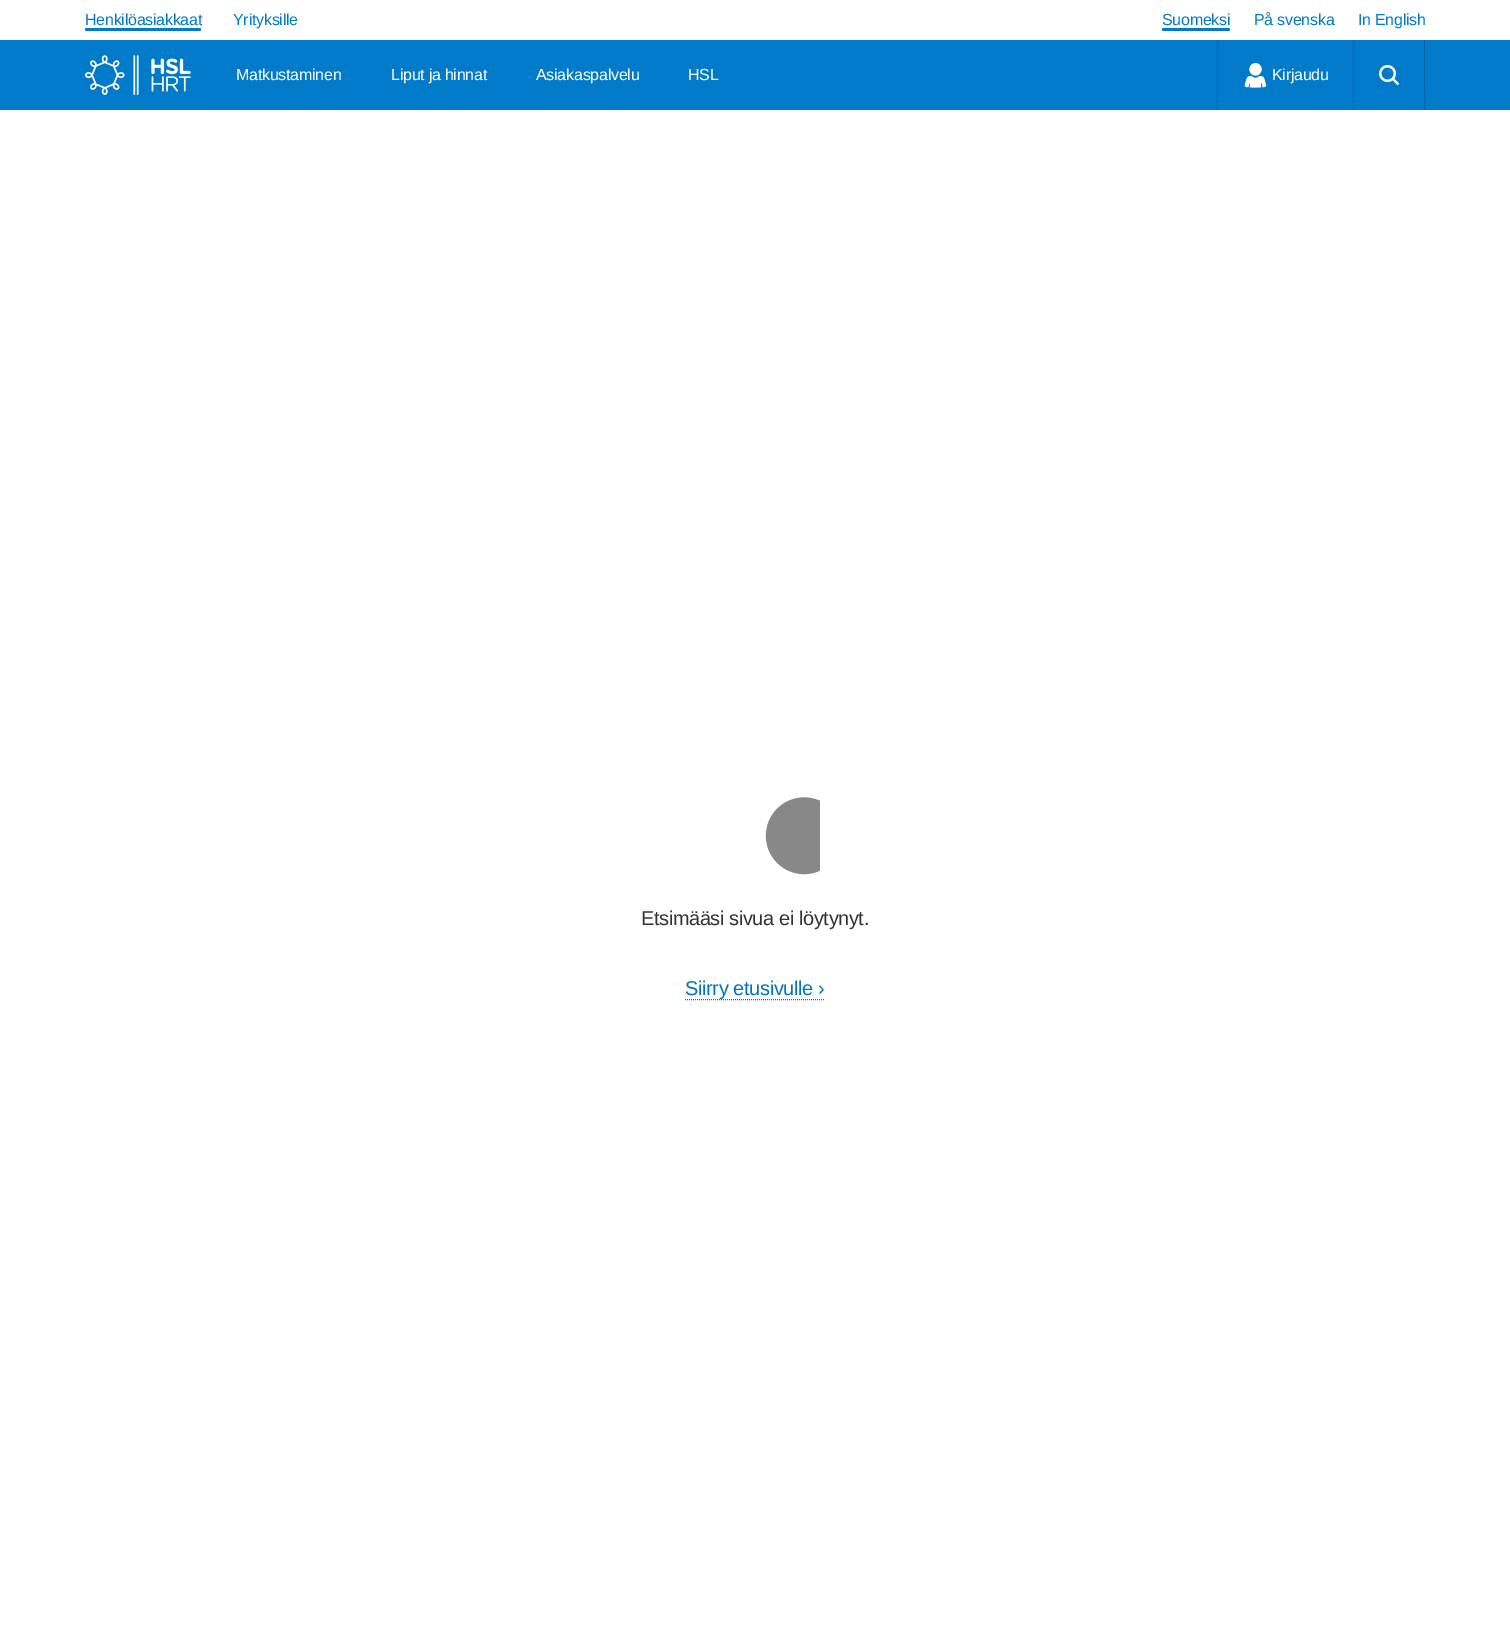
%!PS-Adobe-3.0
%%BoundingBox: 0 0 1510 1638
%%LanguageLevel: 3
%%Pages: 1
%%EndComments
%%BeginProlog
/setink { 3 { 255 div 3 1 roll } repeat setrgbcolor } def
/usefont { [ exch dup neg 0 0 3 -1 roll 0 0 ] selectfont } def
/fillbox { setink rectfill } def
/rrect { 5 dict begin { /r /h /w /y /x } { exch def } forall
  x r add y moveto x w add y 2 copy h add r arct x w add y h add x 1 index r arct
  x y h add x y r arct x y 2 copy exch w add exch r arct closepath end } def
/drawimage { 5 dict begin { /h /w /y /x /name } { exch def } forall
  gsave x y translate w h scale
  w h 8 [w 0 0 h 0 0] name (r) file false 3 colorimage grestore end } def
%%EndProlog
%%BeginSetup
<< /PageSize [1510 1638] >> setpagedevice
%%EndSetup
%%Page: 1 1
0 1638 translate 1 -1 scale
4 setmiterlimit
0 0 1510 1638 255 255 255 fillbox
/LiberationSans-Regular 16 usefont
0 122 201 setink
85 25 moveto -0.25 0 (Henkilöasiakkaat) ashow
85 28 116 3 1.5 rrect fill
233 25 moveto -0.25 0 (Yrityksille) ashow
1162 25 moveto -0.25 0 (Suomeksi) ashow
1162 28 68 3 1.5 rrect fill
1254 25 moveto -0.25 0 (På svenska) ashow
1358 25 moveto -0.25 0 (In English) ashow
0 40 1510 70 0 122 201 fillbox
(assets/img1.rgb) 85 55 106 40 drawimage
255 255 255 setink
236 80 moveto -0.25 0 (Matkustaminen) ashow
391 80 moveto -0.25 0 (Liput ja hinnat) ashow
536 80 moveto -0.25 0 (Asiakaspalvelu) ashow
688 80 moveto -0.25 0 (HSL) ashow
1217 40 1 70 0 98 161 fillbox
(assets/img2.rgb) 1244 63 23 25 drawimage
255 255 255 setink
1272 80 moveto -0.25 0 (Kirjaudu) ashow
1424 40 1 70 0 98 161 fillbox
1353 40 1 70 0 98 161 fillbox
(assets/img3.rgb) 1379 65 20 20 drawimage
(assets/img4.rgb) 765 797 55 78 drawimage
/LiberationSans-Regular 20 usefont
51 51 51 setink
641 925 moveto -0.4 0 (Etsimääsi sivua ei löytynyt.) ashow
0 116 191 setink
[1 1] 0 setdash
685 999.5 moveto 825 999.5 lineto stroke
685 995 moveto -0.4 0 (Siirry etusivulle ›) ashow
showpage
%%EOF
